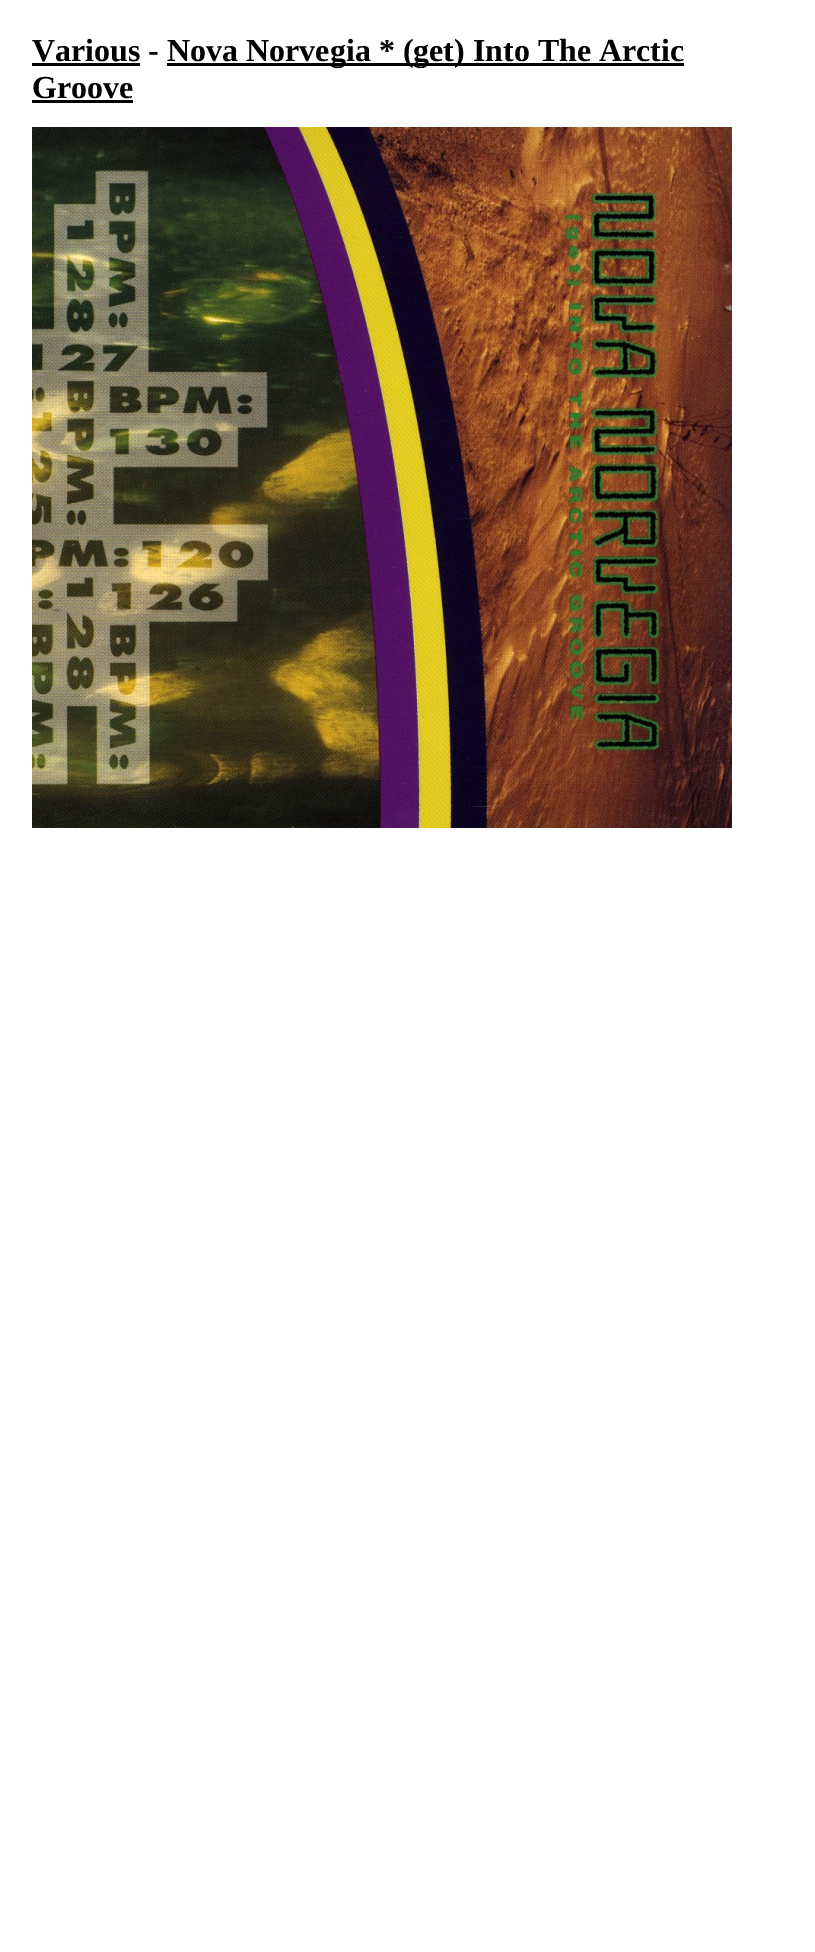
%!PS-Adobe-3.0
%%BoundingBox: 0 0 815 1952
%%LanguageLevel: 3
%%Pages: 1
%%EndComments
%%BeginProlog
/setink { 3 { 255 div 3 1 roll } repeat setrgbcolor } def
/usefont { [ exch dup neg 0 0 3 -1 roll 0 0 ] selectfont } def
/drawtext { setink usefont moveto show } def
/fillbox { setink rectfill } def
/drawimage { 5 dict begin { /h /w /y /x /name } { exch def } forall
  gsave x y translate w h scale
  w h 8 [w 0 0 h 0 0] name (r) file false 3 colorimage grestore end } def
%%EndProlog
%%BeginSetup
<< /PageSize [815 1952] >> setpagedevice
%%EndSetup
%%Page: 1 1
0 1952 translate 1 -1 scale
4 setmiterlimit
0 0 815 1952 255 255 255 fillbox
(Various -) 32 61 /LiberationSerif-Bold 32 0 0 0 drawtext
32 63 108 3 0 0 0 fillbox
167 63 517 3 0 0 0 fillbox
(Nova Norvegia * \(get\) Into The Arctic) 167 61 /LiberationSerif-Bold 32 0 0 0 drawtext
(Groove) 32 98 /LiberationSerif-Bold 32 0 0 0 drawtext
32 100 101 3 0 0 0 fillbox
(assets/img1.rgb) 32 127 700 701 drawimage
showpage
%%EOF
